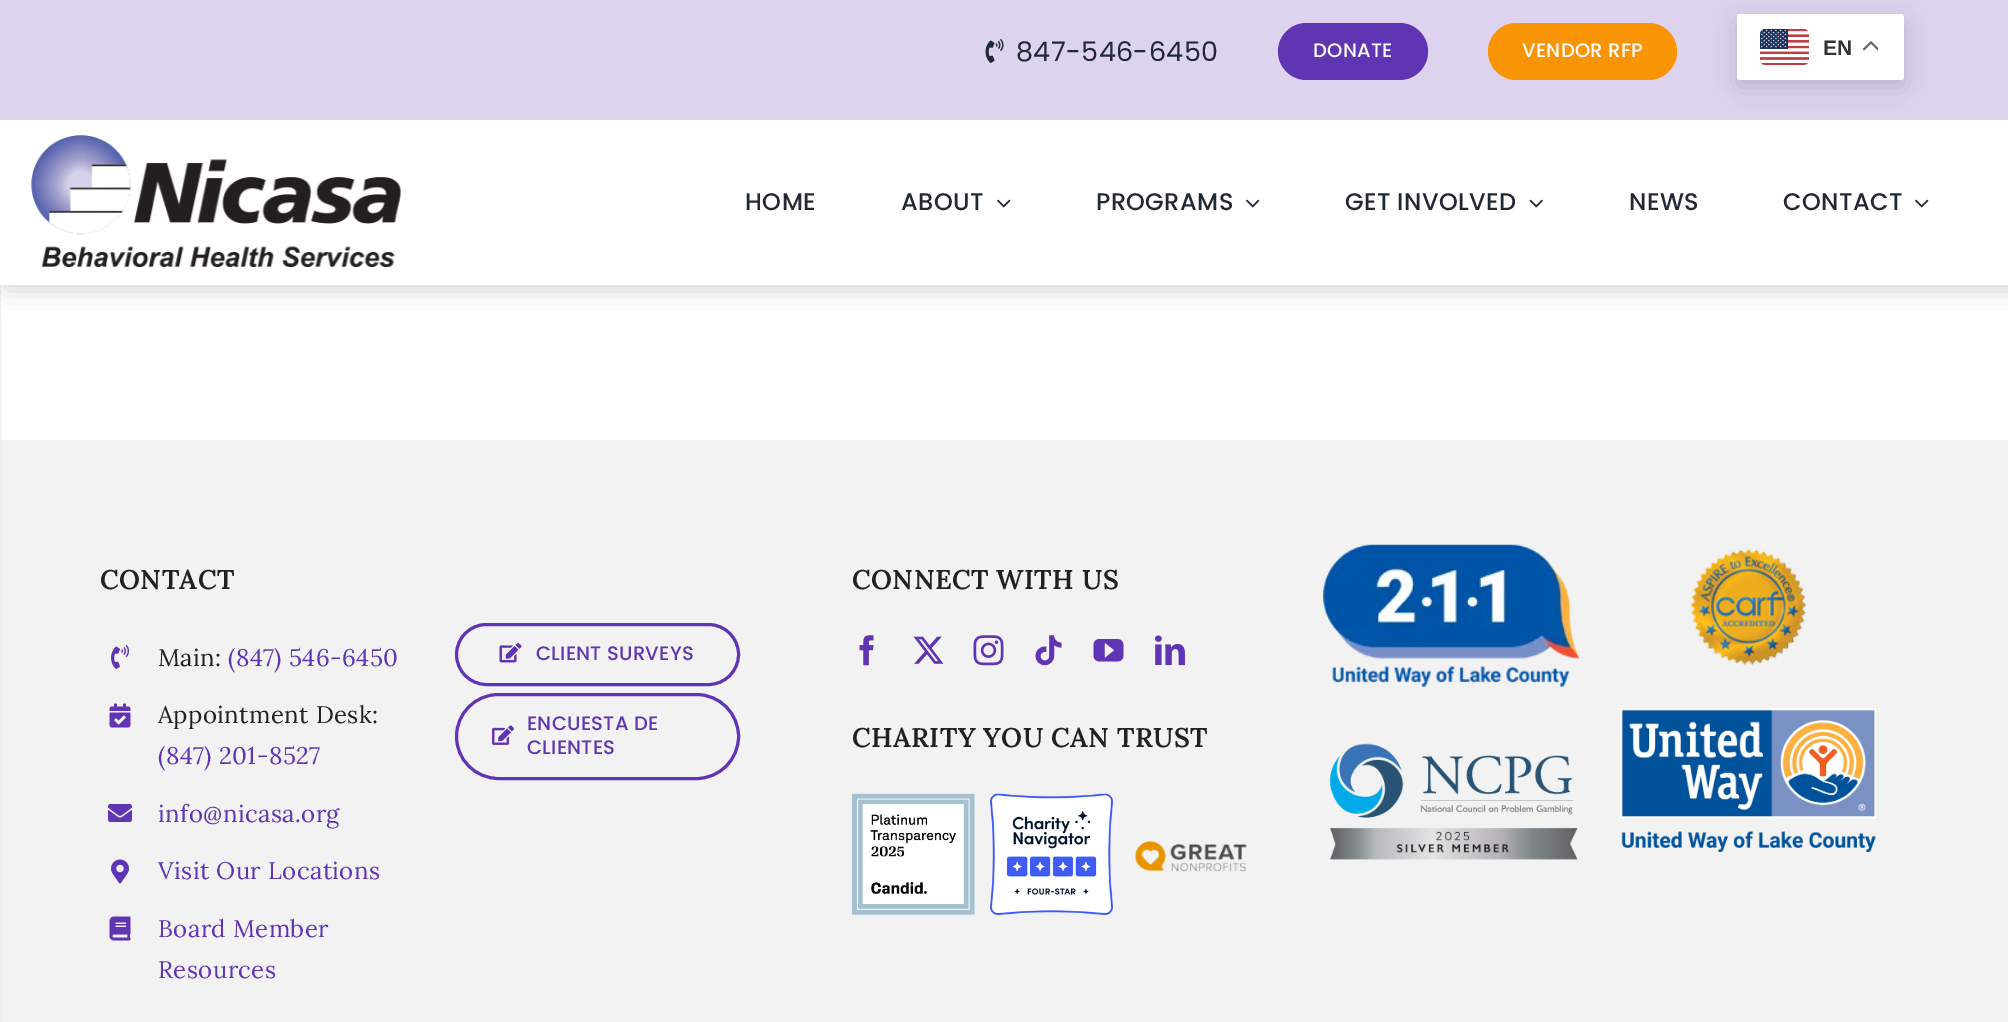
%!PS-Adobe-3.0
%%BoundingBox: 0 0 2008 1022
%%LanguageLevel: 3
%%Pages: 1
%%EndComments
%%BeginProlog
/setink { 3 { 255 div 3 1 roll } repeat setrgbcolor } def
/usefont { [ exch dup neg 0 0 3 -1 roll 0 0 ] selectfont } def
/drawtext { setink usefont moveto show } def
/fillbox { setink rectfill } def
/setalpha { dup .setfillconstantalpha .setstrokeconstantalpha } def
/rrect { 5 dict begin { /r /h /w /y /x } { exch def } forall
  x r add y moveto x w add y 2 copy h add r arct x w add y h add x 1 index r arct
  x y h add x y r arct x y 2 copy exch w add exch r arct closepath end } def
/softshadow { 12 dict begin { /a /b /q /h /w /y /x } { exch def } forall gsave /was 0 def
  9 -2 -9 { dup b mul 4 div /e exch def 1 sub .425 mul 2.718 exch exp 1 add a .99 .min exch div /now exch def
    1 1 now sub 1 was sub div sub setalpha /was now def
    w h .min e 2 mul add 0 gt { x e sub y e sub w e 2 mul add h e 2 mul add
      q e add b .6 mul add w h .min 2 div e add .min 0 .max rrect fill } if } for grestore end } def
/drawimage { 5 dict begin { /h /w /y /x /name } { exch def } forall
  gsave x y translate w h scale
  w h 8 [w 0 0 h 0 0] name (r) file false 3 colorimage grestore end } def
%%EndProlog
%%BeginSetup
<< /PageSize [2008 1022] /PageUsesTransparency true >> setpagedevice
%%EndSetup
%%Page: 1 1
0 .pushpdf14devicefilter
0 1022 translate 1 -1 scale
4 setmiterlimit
0 0 2008 1022 255 255 255 fillbox
0 285 1 737 238 238 238 fillbox
0 0 0 setink
5 5 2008 285 0 12 0.16 softshadow
0 120 2008 165 255 255 255 fillbox
0 0 2008 102 221 211 239 fillbox
(assets/img1.rgb) 985 39 19 24 drawimage
/Poppins-Regular 27 usefont
33 41 52 setink
1016 61 moveto 0.4 0 (847-546-6450) ashow
96 53 180 setink
1278 23 150 57 28.5 rrect fill
/Poppins-Medium 19.5 usefont
255 255 255 setink
1313 57 moveto 0.25 0 (DONATE) ashow
249 149 4 setink
1488 23 189 57 28.5 rrect fill
255 255 255 setink
1522 57 moveto 0.25 0 (VENDOR RFP) ashow
0 102 2008 18 220 211 239 fillbox
0 0 0 setink
1737 21 167 66 3 11 0.15 softshadow
255 255 255 setink
1737 14 167 66 3 rrect fill
(assets/img2.rgb) 1760 29 49 36 drawimage
(EN) 1823 55 /LiberationSans-Bold 21 51 51 51 drawtext
(assets/img3.rgb) 1862 41 16 10 drawimage
(assets/img4.rgb) 31 135 370 132 drawimage
/Poppins-Medium 24 usefont
33 41 52 setink
745 210 moveto 0.4 0 (HOME) ashow
901 210 moveto 0.4 0 (ABOUT) ashow
(assets/img5.rgb) 997 199 14 9 drawimage
1096 210 moveto 0.4 0 (PROGRAMS) ashow
(assets/img5.rgb) 1246 199 14 9 drawimage
1345 210 moveto 0.4 0 (GET INVOLVED) ashow
(assets/img6.rgb) 1529 199 14 9 drawimage
1629 210 moveto 0.4 0 (NEWS) ashow
1783 210 moveto 0.4 0 (CONTACT) ashow
(assets/img5.rgb) 1915 199 14 9 drawimage
1 440 2007 582 242 242 242 fillbox
/Lora-SemiBold 27 usefont
33 33 33 setink
100 589 moveto 0.4 0 (CONTACT) ashow
(assets/img7.rgb) 111 645 18 24 drawimage
/Lora-Regular 24 usefont
158 666 moveto 0.4 0 (Main:) ashow
96 53 180 setink
228 666 moveto 0.4 0 (\(847\) 546-6450) ashow
(assets/img8.rgb) 109 703 22 25 drawimage
33 33 33 setink
158 723 moveto 0.4 0 (Appointment Desk:) ashow
96 53 180 setink
158 764 moveto 0.4 0 (\(847\) 201-8527) ashow
(assets/img9.rgb) 108 804 24 18 drawimage
158 822 moveto 0.4 0 (info@nicasa.org) ashow
(assets/img10.rgb) 111 859 18 25 drawimage
158 879 moveto 0.4 0 (Visit Our Locations) ashow
(assets/img11.rgb) 109 916 22 25 drawimage
158 937 moveto 0.4 0 (Board Member) ashow
158 978 moveto 0.4 0 (Resources) ashow
3 setlinewidth
456.5 624.5 282 60 30 rrect stroke
(assets/img12.rgb) 499 643 23 20 drawimage
/Poppins-Medium 19.5 usefont
536 660 moveto 0.25 0 (CLIENT SURVEYS) ashow
456.5 694.5 282 84 42 rrect stroke
(assets/img13.rgb) 492 725 22 20 drawimage
527 730 moveto 0.25 0 (ENCUESTA DE) ashow
527 754 moveto 0.25 0 (CLIENTES) ashow
/Lora-SemiBold 27 usefont
33 33 33 setink
852 589 moveto 0.4 0 (CONNECT WITH US) ashow
(assets/img14.rgb) 859 635 15 31 drawimage
(assets/img15.rgb) 913 636 31 28 drawimage
(assets/img16.rgb) 973 635 31 31 drawimage
(assets/img17.rgb) 1035 635 27 31 drawimage
(assets/img18.rgb) 1093 639 31 23 drawimage
(assets/img19.rgb) 1155 635 30 31 drawimage
852 747 moveto 0.4 0 (CHARITY YOU CAN TRUST) ashow
(assets/img20.rgb) 852 793 123 122 drawimage
(assets/img21.rgb) 990 793 123 122 drawimage
(assets/img22.rgb) 1134 840 113 32 drawimage
(assets/img23.rgb) 1323 544 257 143 drawimage
(assets/img24.rgb) 1690 548 117 118 drawimage
(assets/img25.rgb) 1329 743 249 117 drawimage
(assets/img26.rgb) 1620 708 256 144 drawimage
.poppdf14devicefilter showpage
%%EOF
